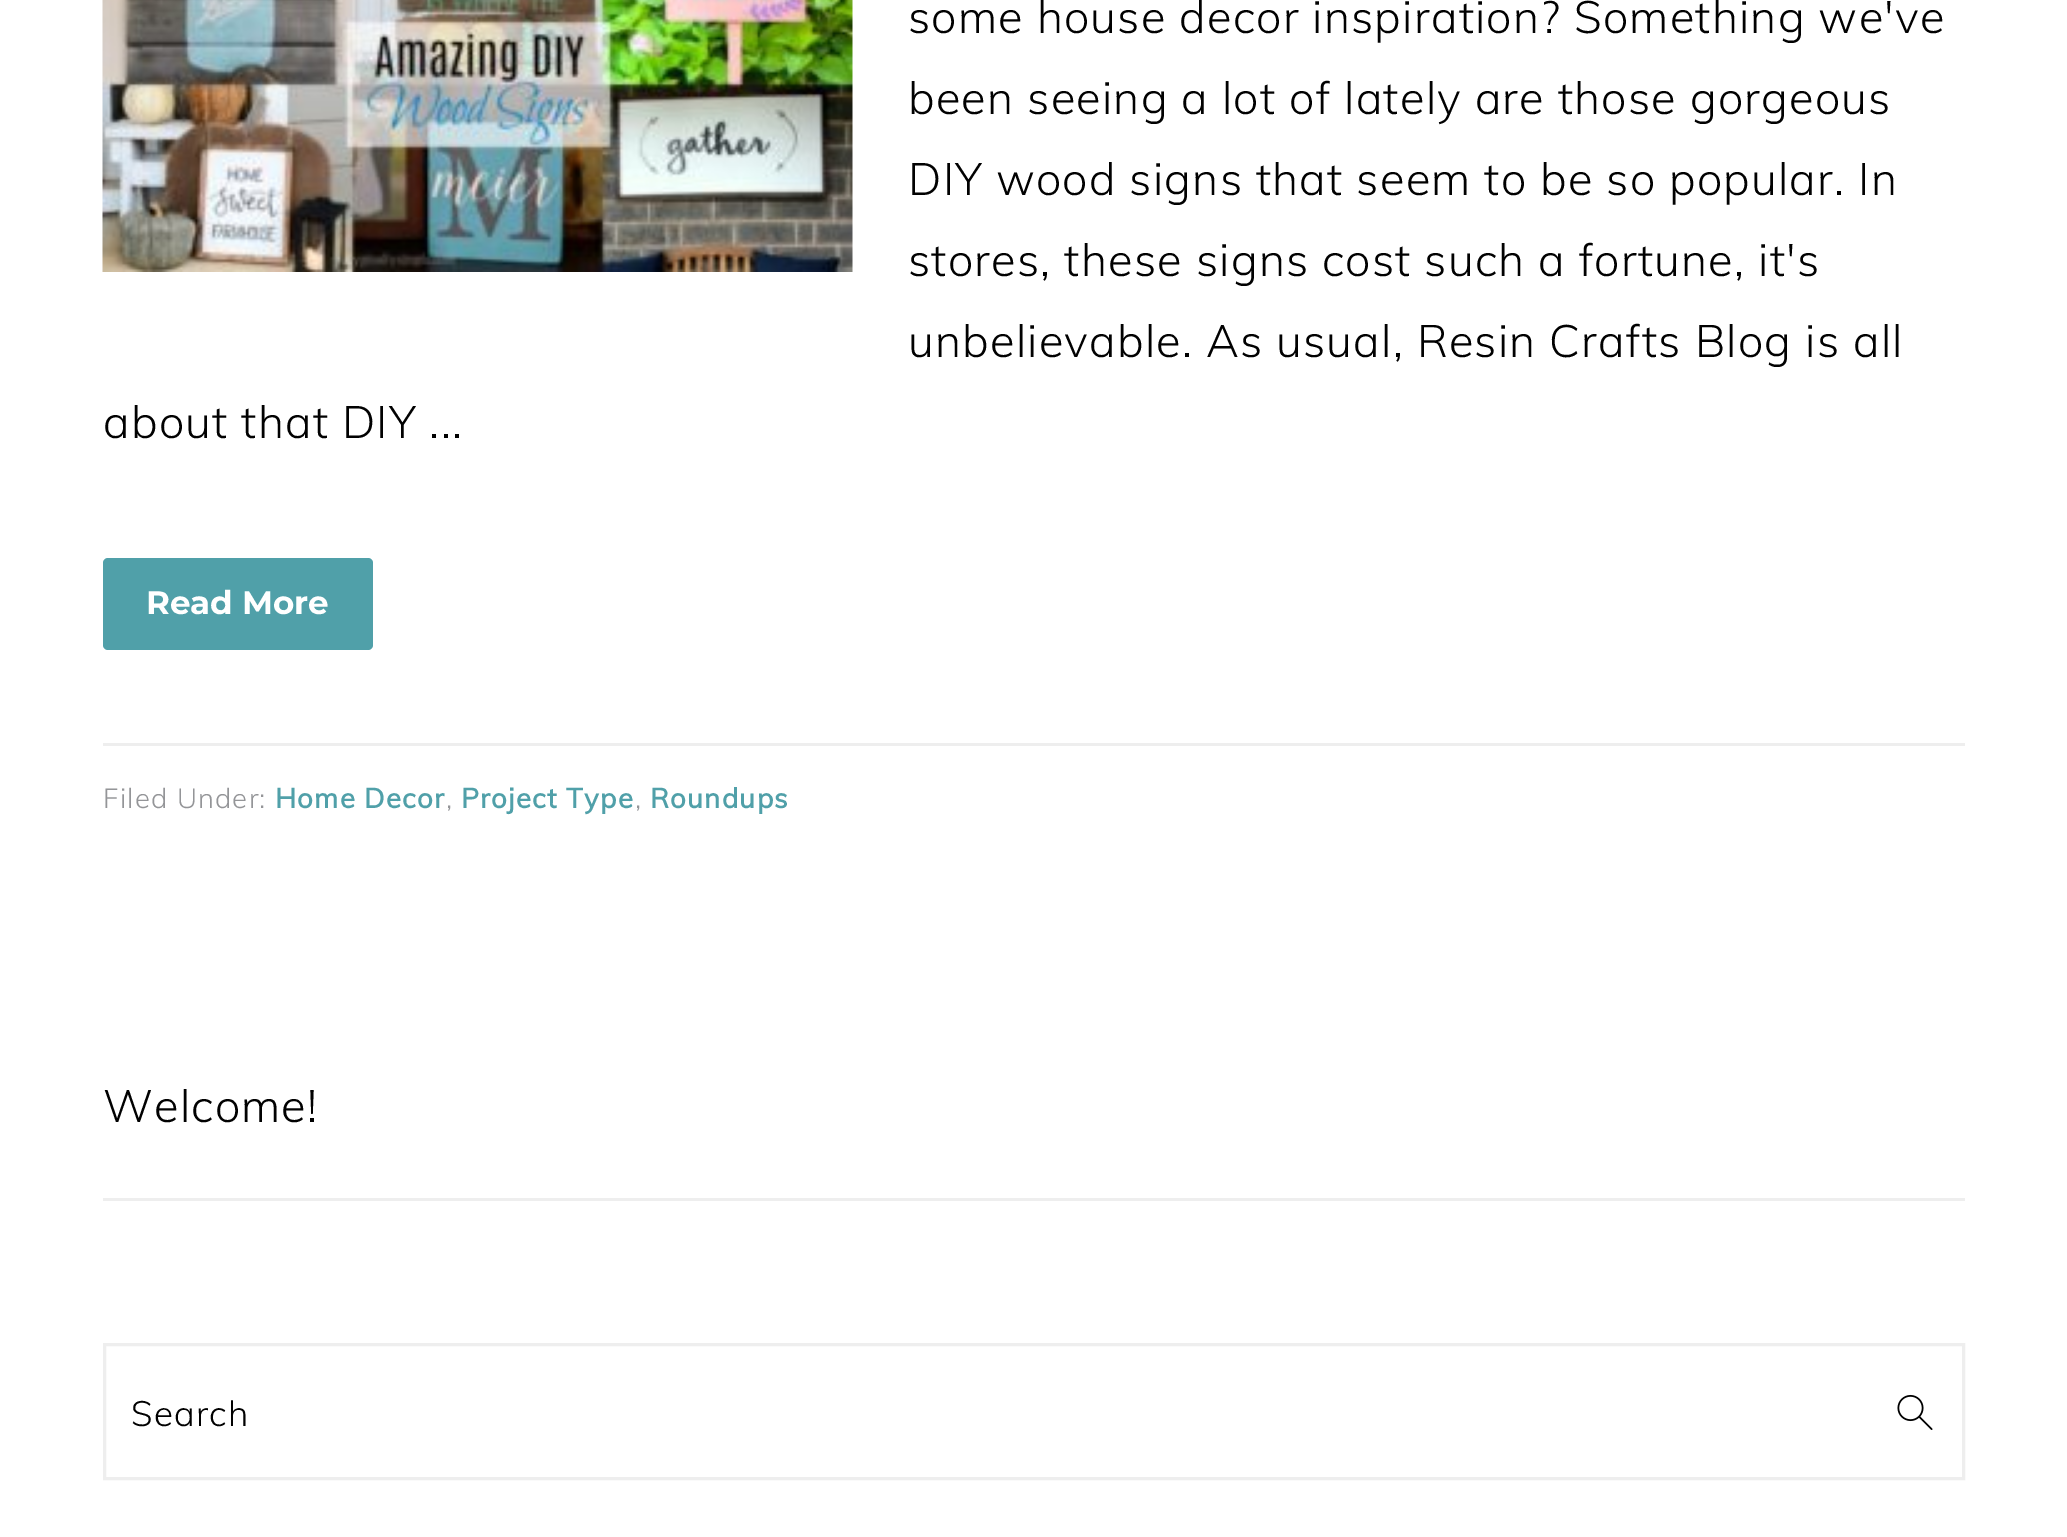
%!PS-Adobe-3.0
%%BoundingBox: 0 0 2067 1537
%%LanguageLevel: 3
%%Pages: 1
%%EndComments
%%BeginProlog
/setink { 3 { 255 div 3 1 roll } repeat setrgbcolor } def
/usefont { [ exch dup neg 0 0 3 -1 roll 0 0 ] selectfont } def
/drawtext { setink usefont moveto show } def
/fillbox { setink rectfill } def
/rrect { 5 dict begin { /r /h /w /y /x } { exch def } forall
  x r add y moveto x w add y 2 copy h add r arct x w add y h add x 1 index r arct
  x y h add x y r arct x y 2 copy exch w add exch r arct closepath end } def
/drawimage { 5 dict begin { /h /w /y /x /name } { exch def } forall
  gsave x y translate w h scale
  w h 8 [w 0 0 h 0 0] name (r) file false 3 colorimage grestore end } def
%%EndProlog
%%BeginSetup
<< /PageSize [2067 1537] >> setpagedevice
%%EndSetup
%%Page: 1 1
0 1537 translate 1 -1 scale
4 setmiterlimit
0 0 2067 1537 255 255 255 fillbox
(assets/img1.rgb) 102 0 751 272 drawimage
/Muli-Light 45 usefont
1 1 1 setink
908 33 moveto 1.25 0 (some house decor inspiration? Something we've) ashow
908 114 moveto 1.25 0 (been seeing a lot of lately are those gorgeous) ashow
908 195 moveto 1.25 0 (DIY wood signs that seem to be so popular. In) ashow
908 276 moveto 1.25 0 (stores, these signs cost such a fortune, it's) ashow
908 357 moveto 1.25 0 (unbelievable. As usual, Resin Crafts Blog is all) ashow
103 438 moveto 1.25 0 (about that DIY ...) ashow
80 160 169 setink
103 558 270 92 5 rrect fill
(Read More) 146 614 /Montserrat-Bold 32.5 255 255 255 drawtext
103 743 1862 3 238 238 238 fillbox
/Muli-Light 27.5 usefont
148 149 152 setink
103 808 moveto 1.25 0 (Filed Under:) ashow
/Muli-Bold 27.5 usefont
80 160 169 setink
275 808 moveto 1.25 0 (Home Decor) ashow
/Muli-Light 27.5 usefont
148 149 152 setink
446 808 moveto 1.25 0 (,) ashow
/Muli-Bold 27.5 usefont
80 160 169 setink
461 808 moveto 1.25 0 (Project Type) ashow
/Muli-Light 27.5 usefont
148 149 152 setink
635 808 moveto 1.25 0 (,) ashow
/Muli-Bold 27.5 usefont
80 160 169 setink
650 808 moveto 1.25 0 (Roundups) ashow
103 1198 1862 3 238 238 238 fillbox
/Muli-Light 45 usefont
1 1 1 setink
103 1122 moveto 1.25 0 (Welcome!) ashow
238 238 238 setink
3 setlinewidth
104.5 1344.5 1859 134 rectstroke
(assets/img2.rgb) 1897 1394 36 36 drawimage
/Muli-Light 35 usefont
1 1 1 setink
131 1426 moveto 1.25 0 (Search) ashow
showpage
%%EOF
